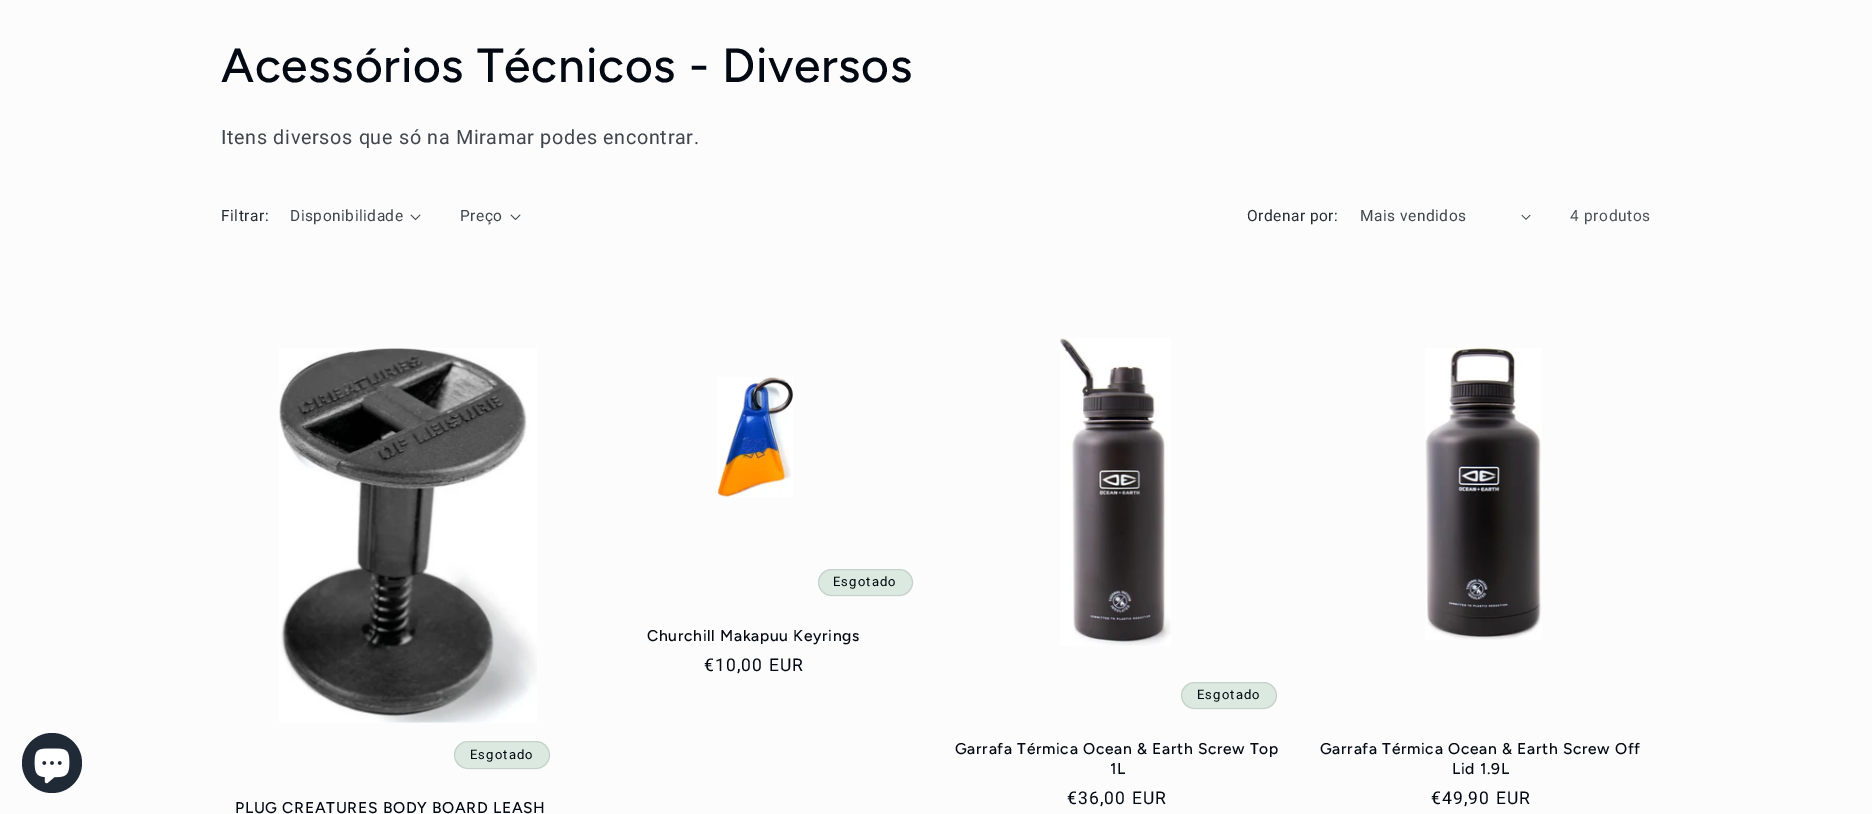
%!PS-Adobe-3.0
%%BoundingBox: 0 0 1872 814
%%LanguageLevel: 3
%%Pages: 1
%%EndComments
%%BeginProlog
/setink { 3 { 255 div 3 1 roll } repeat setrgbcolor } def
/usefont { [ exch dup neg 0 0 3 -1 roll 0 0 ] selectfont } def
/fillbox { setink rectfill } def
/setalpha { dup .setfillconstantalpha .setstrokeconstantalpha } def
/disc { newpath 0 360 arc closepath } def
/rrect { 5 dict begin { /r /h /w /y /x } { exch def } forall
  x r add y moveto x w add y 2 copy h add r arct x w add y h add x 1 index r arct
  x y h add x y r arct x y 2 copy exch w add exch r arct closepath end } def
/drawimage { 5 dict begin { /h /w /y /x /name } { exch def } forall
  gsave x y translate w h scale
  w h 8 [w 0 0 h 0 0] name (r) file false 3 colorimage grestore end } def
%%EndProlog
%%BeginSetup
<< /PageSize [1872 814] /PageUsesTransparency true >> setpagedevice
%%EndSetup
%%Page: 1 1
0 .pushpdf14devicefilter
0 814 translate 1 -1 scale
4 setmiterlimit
0 0 1872 814 252 252 252 fillbox
32 42 54 setink
52 763 30 disc fill
(assets/img1.rgb) 34 748 36 36 drawimage
/Figtree-Medium 48 usefont
2 9 18 setink
221 82 moveto 0.7 0 (Acessórios Técnicos - Diversos) ashow
/Roboto-Regular 19.8 usefont
65 70 77 setink
221 144 moveto 0.65 0 (Itens diversos que só na Miramar podes encontrar.) ashow
/Roboto-Regular 15.5 usefont
40 45 53 setink
221 221 moveto 0.5 0 (Filtrar:) ashow
65 70 77 setink
290 221 moveto 0.5 0 (Disponibilidade) ashow
(assets/img2.rgb) 410 214 11 6 drawimage
460 221 moveto 0.5 0 (Preço) ashow
(assets/img2.rgb) 510 214 11 6 drawimage
40 45 53 setink
1247 221 moveto 0.5 0 (Ordenar por:) ashow
65 70 77 setink
1360 221 moveto 0.5 0 (Mais vendidos) ashow
(assets/img3.rgb) 1521 214 10 6 drawimage
77 82 88 setink
1570 221 moveto 0.65 0 (4 produtos) ashow
(assets/img4.rgb) 717 377 76 120 drawimage
219 233 224 setink
818 569 95 27 13.5 rrect fill
0.1 setalpha
2 9 18 setink
818.5 569.5 94 26 13 rrect stroke
/Roboto-Regular 13 usefont
1 setalpha
833 586 moveto 1.1 0 (Esgotado) ashow
/Figtree-Medium 15.6 usefont
647 641 moveto 0.7 0 (Churchill Makapuu Keyrings) ashow
/Roboto-Regular 17.5 usefont
704 671 moveto 1.1 0 (€10,00 EUR) ashow
(assets/img5.rgb) 279 348 258 375 drawimage
219 233 224 setink
454 741 96 28 14 rrect fill
0.1 setalpha
2 9 18 setink
454.5 741.5 95 27 13.5 rrect stroke
/Roboto-Regular 13 usefont
1 setalpha
470 759 moveto 1.1 0 (Esgotado) ashow
/Figtree-Medium 15.6 usefont
235 813 moveto 0.7 0 (PLUG CREATURES BODY BOARD LEASH) ashow
(assets/img6.rgb) 1060 338 111 308 drawimage
219 233 224 setink
1181 682 96 27 13.5 rrect fill
0.1 setalpha
2 9 18 setink
1181.5 682.5 95 26 13 rrect stroke
/Roboto-Regular 13 usefont
1 setalpha
1197 699 moveto 1.1 0 (Esgotado) ashow
/Figtree-Medium 15.6 usefont
955 754 moveto 0.7 0 (Garrafa Térmica Ocean & Earth Screw Top) ashow
1110 774 moveto 0.7 0 (1L) ashow
/Roboto-Regular 17.5 usefont
1067 804 moveto 1.1 0 (€36,00 EUR) ashow
(assets/img7.rgb) 1425 348 117 292 drawimage
/Figtree-Medium 15.6 usefont
1320 754 moveto 0.7 0 (Garrafa Térmica Ocean & Earth Screw Off) ashow
1452 774 moveto 0.7 0 (Lid 1.9L) ashow
/Roboto-Regular 17.5 usefont
1431 804 moveto 1.1 0 (€49,90 EUR) ashow
.poppdf14devicefilter showpage
%%EOF
